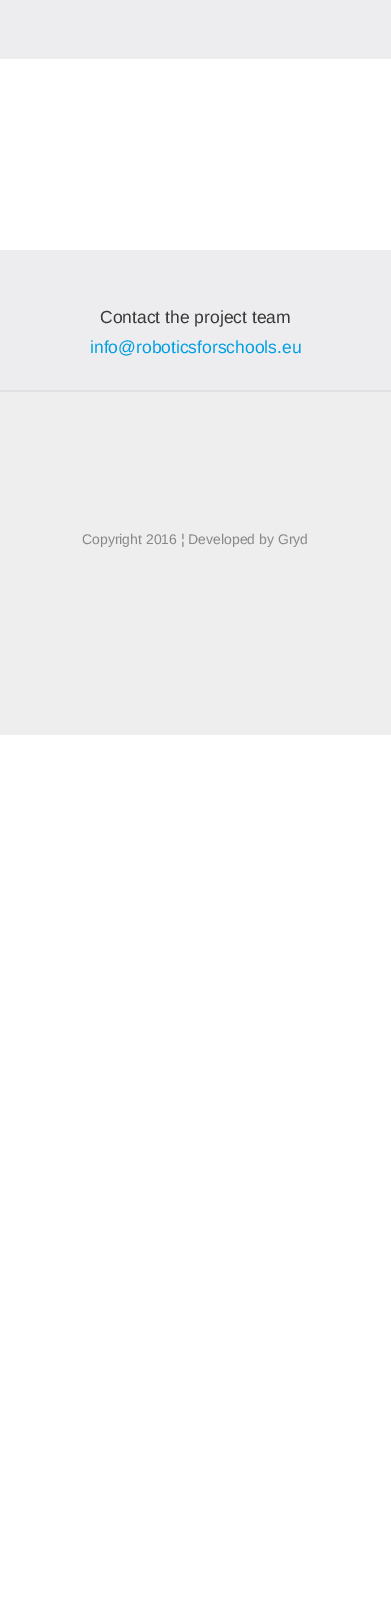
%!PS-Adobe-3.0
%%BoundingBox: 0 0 391 1618
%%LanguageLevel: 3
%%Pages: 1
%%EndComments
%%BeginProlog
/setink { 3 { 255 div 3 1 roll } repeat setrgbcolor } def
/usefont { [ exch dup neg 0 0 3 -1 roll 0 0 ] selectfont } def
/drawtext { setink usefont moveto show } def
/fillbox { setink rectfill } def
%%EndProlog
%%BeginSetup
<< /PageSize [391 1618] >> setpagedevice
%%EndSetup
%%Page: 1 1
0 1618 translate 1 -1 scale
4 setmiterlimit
0 0 391 1618 255 255 255 fillbox
0 0 391 390 237 236 238 fillbox
0 59 391 191 255 255 255 fillbox
(Contact the project team) 100 323 /LiberationSans-Regular 17.5 56 56 56 drawtext
(info@roboticsforschools.eu) 90 353 /LiberationSans-Regular 17.5 0 159 227 drawtext
0 392 391 343 238 238 238 fillbox
0 390 391 2 225 225 225 fillbox
(Copyright 2016 ¦ Developed by Gryd) 82 544 /LiberationSans-Regular 14 136 136 136 drawtext
showpage
%%EOF
